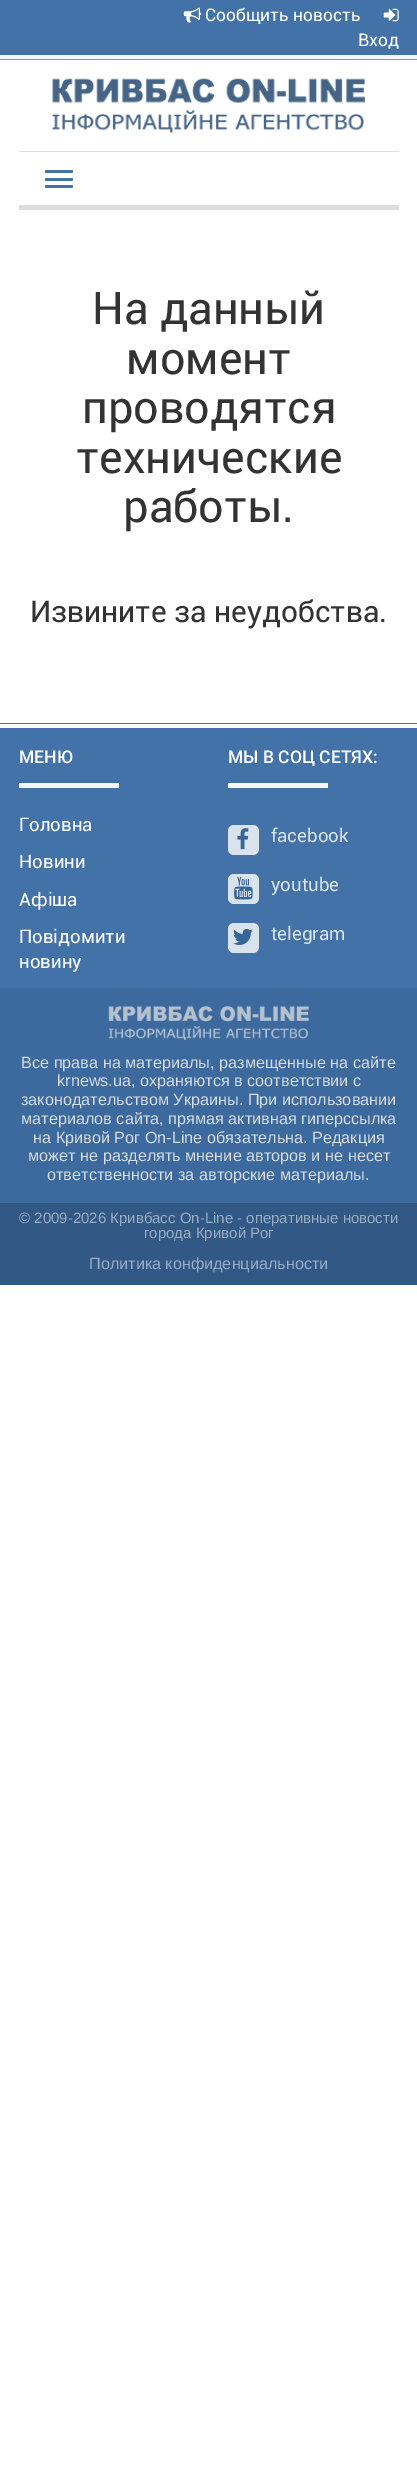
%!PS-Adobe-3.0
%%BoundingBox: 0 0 417 2484
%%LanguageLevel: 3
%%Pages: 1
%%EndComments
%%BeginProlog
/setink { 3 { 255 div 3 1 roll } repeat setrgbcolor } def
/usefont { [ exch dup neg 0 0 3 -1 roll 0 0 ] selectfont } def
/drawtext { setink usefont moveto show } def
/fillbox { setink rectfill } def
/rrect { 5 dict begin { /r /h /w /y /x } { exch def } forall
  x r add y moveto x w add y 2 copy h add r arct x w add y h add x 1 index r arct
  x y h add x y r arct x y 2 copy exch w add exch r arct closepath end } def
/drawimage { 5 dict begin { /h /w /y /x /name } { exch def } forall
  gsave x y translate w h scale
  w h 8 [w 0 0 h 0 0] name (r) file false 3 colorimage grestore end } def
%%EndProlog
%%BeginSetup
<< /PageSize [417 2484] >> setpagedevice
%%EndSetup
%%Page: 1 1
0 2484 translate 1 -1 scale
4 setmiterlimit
0 0 417 2484 255 255 255 fillbox
0 0 417 55 67 114 168 fillbox
0 55 417 4 245 245 245 fillbox
(assets/img1.rgb) 183 7 19 16 drawimage
(Сообщить новость) 205 21 /Roboto-Regular 17.5 255 255 255 drawtext
(assets/img2.rgb) 383 8 16 14 drawimage
(Вход) 358 46 /Roboto-Regular 17.5 255 255 255 drawtext
0 59 417 1 119 153 192 fillbox
(assets/img3.rgb) 52 78 313 55 drawimage
19 151 380 1 221 221 221 fillbox
19 205 380 5 221 221 221 fillbox
67 114 168 setink
45 170 28 3 1.5 rrect fill
45 178 28 3 1.5 rrect fill
45 185 28 3 1.5 rrect fill
(На данный) 92 324 /Roboto-Regular 45 51 51 51 drawtext
(момент) 126 374 /Roboto-Regular 45 51 51 51 drawtext
(проводятся) 82 423 /Roboto-Regular 45 51 51 51 drawtext
(технические) 76 473 /Roboto-Regular 45 51 51 51 drawtext
(работы.) 123 522 /Roboto-Regular 45 51 51 51 drawtext
(Извините за неудобства.) 30 622 /Roboto-Regular 30 51 51 51 drawtext
0 728 417 260 67 114 168 fillbox
0 723 417 1 67 114 168 fillbox
(МЕНЮ) 19 763 /Roboto-Medium 17.5 255 255 255 drawtext
19 783 100 5 248 248 248 fillbox
(Головна) 19 831 /Roboto-Regular 18.75 255 255 255 drawtext
(Новини) 19 868 /Roboto-Regular 18.75 255 255 255 drawtext
(Афіша) 19 906 /Roboto-Regular 18.75 255 255 255 drawtext
(Повідомити) 19 943 /Roboto-Regular 18.75 255 255 255 drawtext
(новину) 19 968 /Roboto-Regular 18.75 255 255 255 drawtext
(МЫ В СОЦ СЕТЯХ:) 228 763 /Roboto-Medium 17.5 255 255 255 drawtext
228 783 100 5 248 248 248 fillbox
217 227 238 setink
228 825 31 30 6 rrect fill
(assets/img4.rgb) 237 828 12 22 drawimage
(facebook) 271 842 /Roboto-Regular 18.75 217 227 238 drawtext
228 874 31 30 6 rrect fill
(assets/img5.rgb) 234 876 19 24 drawimage
(youtube) 271 891 /Roboto-Regular 18.75 217 227 238 drawtext
228 923 31 30 6 rrect fill
(assets/img6.rgb) 233 928 20 17 drawimage
(telegram) 271 940 /Roboto-Regular 18.75 217 227 238 drawtext
0 988 417 215 61 106 158 fillbox
(assets/img7.rgb) 108 1006 201 34 drawimage
(Все права на материалы, размещенные на сайте) 21 1068 /LiberationSans-Regular 16.25 214 220 226 drawtext
(krnews.ua, охраняются в соответствии с) 57 1086 /LiberationSans-Regular 16.25 214 220 226 drawtext
(законодательством Украины. При использовании) 21 1105 /LiberationSans-Regular 16.25 214 220 226 drawtext
(материалов сайта, прямая активная гиперссылка) 21 1124 /LiberationSans-Regular 16.25 214 220 226 drawtext
(на Кривой Рог On-Line обязательна. Редакция) 33 1143 /LiberationSans-Regular 16.25 214 220 226 drawtext
(может не разделять мнение авторов и не несет) 28 1161 /LiberationSans-Regular 16.25 214 220 226 drawtext
(ответственности за авторские материалы.) 47 1180 /LiberationSans-Regular 16.25 214 220 226 drawtext
0 1203 417 82 50 89 134 fillbox
(© 2009-2026 Кривбасс On-Line - оперативные новости) 19 1223 /LiberationSans-Regular 15 153 172 195 drawtext
(города Кривой Рог) 144 1238 /LiberationSans-Regular 15 153 172 195 drawtext
(Политика конфиденциальности) 89 1269 /LiberationSans-Regular 16.25 153 172 195 drawtext
showpage
%%EOF
